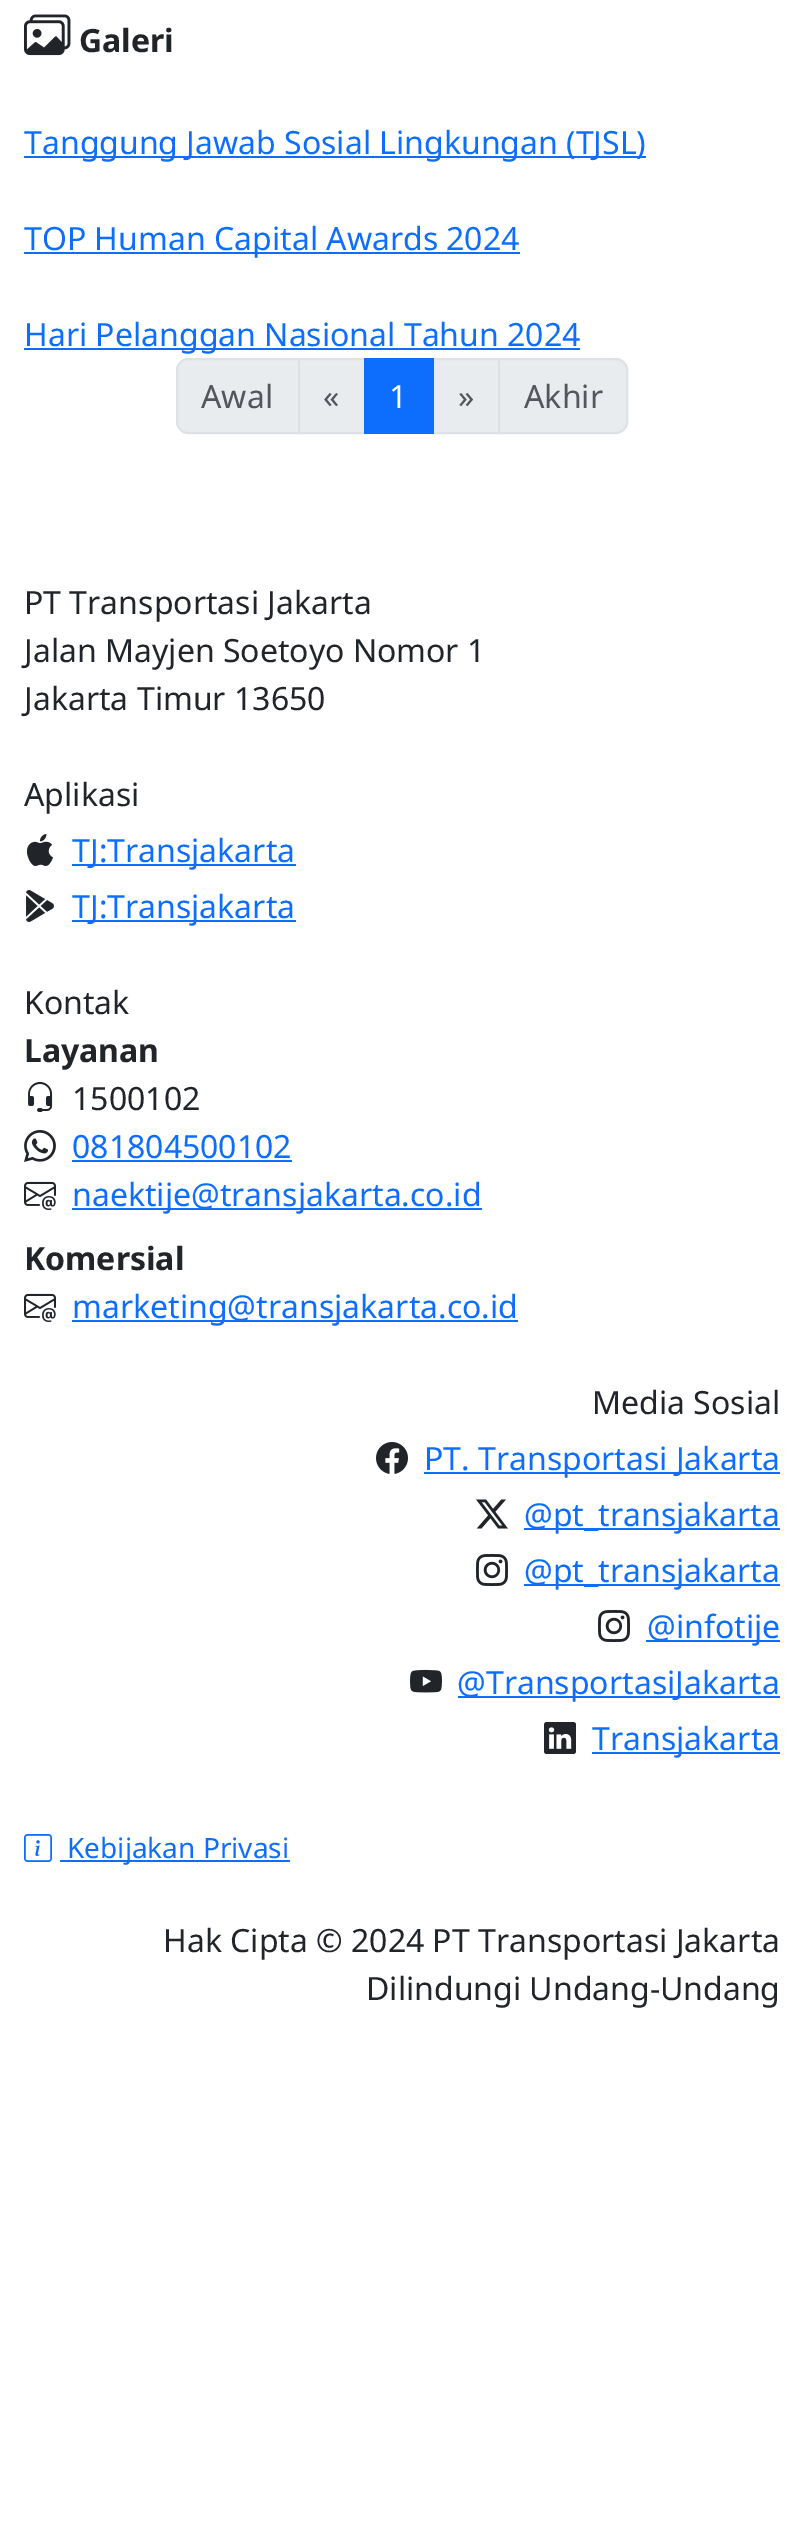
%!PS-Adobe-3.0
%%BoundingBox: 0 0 803 2527
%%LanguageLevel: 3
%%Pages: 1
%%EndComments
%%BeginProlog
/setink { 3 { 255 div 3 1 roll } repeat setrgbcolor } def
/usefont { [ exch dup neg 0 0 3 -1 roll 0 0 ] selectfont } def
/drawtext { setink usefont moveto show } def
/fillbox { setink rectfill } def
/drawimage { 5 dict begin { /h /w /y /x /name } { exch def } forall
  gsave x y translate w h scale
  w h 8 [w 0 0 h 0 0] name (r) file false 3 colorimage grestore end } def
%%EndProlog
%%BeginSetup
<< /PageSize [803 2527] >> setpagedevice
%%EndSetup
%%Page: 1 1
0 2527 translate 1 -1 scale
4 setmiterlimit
0 0 803 2527 255 255 255 fillbox
(assets/img1.rgb) 24 14 47 42 drawimage
(Galeri) 79 52 /NotoSans-Bold 32 33 37 41 drawtext
24 156 622 2 13 110 253 fillbox
(Tanggung Jawab Sosial Lingkungan \(TJSL\)) 24 154 /NotoSans-Regular 32 13 110 253 drawtext
24 252 496 2 13 110 253 fillbox
(TOP Human Capital Awards 2024) 24 250 /NotoSans-Regular 32 13 110 253 drawtext
24 348 556 2 13 110 253 fillbox
(Hari Pelanggan Nasional Tahun 2024) 24 346 /NotoSans-Regular 32 13 110 253 drawtext
233 236 239 setink
188 359 moveto 299 359 lineto 299 433 lineto 188 433 lineto 182 433 177 428 177 422 curveto 177 370 lineto 177 364 182 359 188 359 curveto closepath gsave fill grestore
222 226 230 setink
2 setlinewidth
stroke
(Awal) 201 408 /NotoSans-Regular 32 83 87 91 drawtext
233 236 239 setink
299 359 moveto 365 359 lineto 365 433 lineto 299 433 lineto closepath gsave fill grestore
222 226 230 setink
stroke
(«) 323 408 /NotoSans-Regular 32 83 87 91 drawtext
233 236 239 setink
433 359 moveto 499 359 lineto 499 433 lineto 433 433 lineto closepath gsave fill grestore
222 226 230 setink
stroke
364 358 70 76 13 110 253 fillbox
(1) 389 408 /NotoSans-Regular 32 255 255 255 drawtext
(») 458 408 /NotoSans-Regular 32 83 87 91 drawtext
233 236 239 setink
499 359 moveto 616 359 lineto 622 359 627 364 627 370 curveto 627 422 lineto 627 428 622 433 616 433 curveto 499 433 lineto closepath gsave fill grestore
222 226 230 setink
stroke
(Akhir) 524 408 /NotoSans-Regular 32 83 87 91 drawtext
(PT Transportasi Jakarta) 24 614 /NotoSans-Regular 32 33 37 41 drawtext
(Jalan Mayjen Soetoyo Nomor 1) 24 662 /NotoSans-Regular 32 33 37 41 drawtext
(Jakarta Timur 13650) 24 710 /NotoSans-Regular 32 33 37 41 drawtext
(Aplikasi) 24 806 /NotoSans-Regular 32 33 37 41 drawtext
(assets/img2.rgb) 27 834 26 32 drawimage
72 864 224 2 13 110 253 fillbox
(TJ:Transjakarta) 72 862 /NotoSans-Regular 32 13 110 253 drawtext
(assets/img3.rgb) 26 890 28 32 drawimage
72 920 224 2 13 110 253 fillbox
(TJ:Transjakarta) 72 918 /NotoSans-Regular 32 13 110 253 drawtext
(Kontak) 24 1014 /NotoSans-Regular 32 33 37 41 drawtext
(Layanan) 24 1062 /NotoSans-Bold 32 33 37 41 drawtext
(assets/img4.rgb) 28 1082 25 30 drawimage
(1500102) 72 1110 /NotoSans-Regular 32 33 37 41 drawtext
(assets/img5.rgb) 24 1130 32 32 drawimage
(081804500102) 72 1158 /NotoSans-Regular 32 13 110 253 drawtext
72 1160 220 2 13 110 253 fillbox
(assets/img6.rgb) 24 1181 32 29 drawimage
72 1208 410 2 13 110 253 fillbox
(naektije@transjakarta.co.id) 72 1206 /NotoSans-Regular 32 13 110 253 drawtext
(Komersial) 24 1270 /NotoSans-Bold 32 33 37 41 drawtext
(assets/img6.rgb) 24 1293 32 29 drawimage
72 1320 446 2 13 110 253 fillbox
(marketing@transjakarta.co.id) 72 1318 /NotoSans-Regular 32 13 110 253 drawtext
(Media Sosial) 592 1414 /NotoSans-Regular 32 33 37 41 drawtext
(assets/img7.rgb) 376 1442 32 32 drawimage
424 1472 356 2 13 110 253 fillbox
(PT. Transportasi Jakarta) 424 1470 /NotoSans-Regular 32 13 110 253 drawtext
(assets/img8.rgb) 476 1499 32 30 drawimage
524 1528 256 2 13 110 253 fillbox
(@pt_transjakarta) 524 1526 /NotoSans-Regular 32 13 110 253 drawtext
(assets/img9.rgb) 476 1554 32 32 drawimage
524 1584 256 2 13 110 253 fillbox
(@pt_transjakarta) 524 1582 /NotoSans-Regular 32 13 110 253 drawtext
(assets/img9.rgb) 598 1610 32 32 drawimage
646 1640 134 2 13 110 253 fillbox
(@infotije) 647 1638 /NotoSans-Regular 32 13 110 253 drawtext
(assets/img10.rgb) 410 1669 32 24 drawimage
458 1696 322 2 13 110 253 fillbox
(@TransportasiJakarta) 457 1694 /NotoSans-Regular 32 13 110 253 drawtext
(assets/img11.rgb) 544 1722 32 32 drawimage
592 1752 188 2 13 110 253 fillbox
(Transjakarta) 592 1750 /NotoSans-Regular 32 13 110 253 drawtext
(assets/img12.rgb) 24 1834 28 28 drawimage
60 1860 230 2 13 110 253 fillbox
(Kebijakan Privasi) 67 1858 /NotoSans-Regular 28 13 110 253 drawtext
(Hak Cipta © 2024 PT Transportasi Jakarta) 163 1952 /NotoSans-Regular 32 33 37 41 drawtext
(Dilindungi Undang-Undang) 366 2000 /NotoSans-Regular 32 33 37 41 drawtext
showpage
%%EOF
